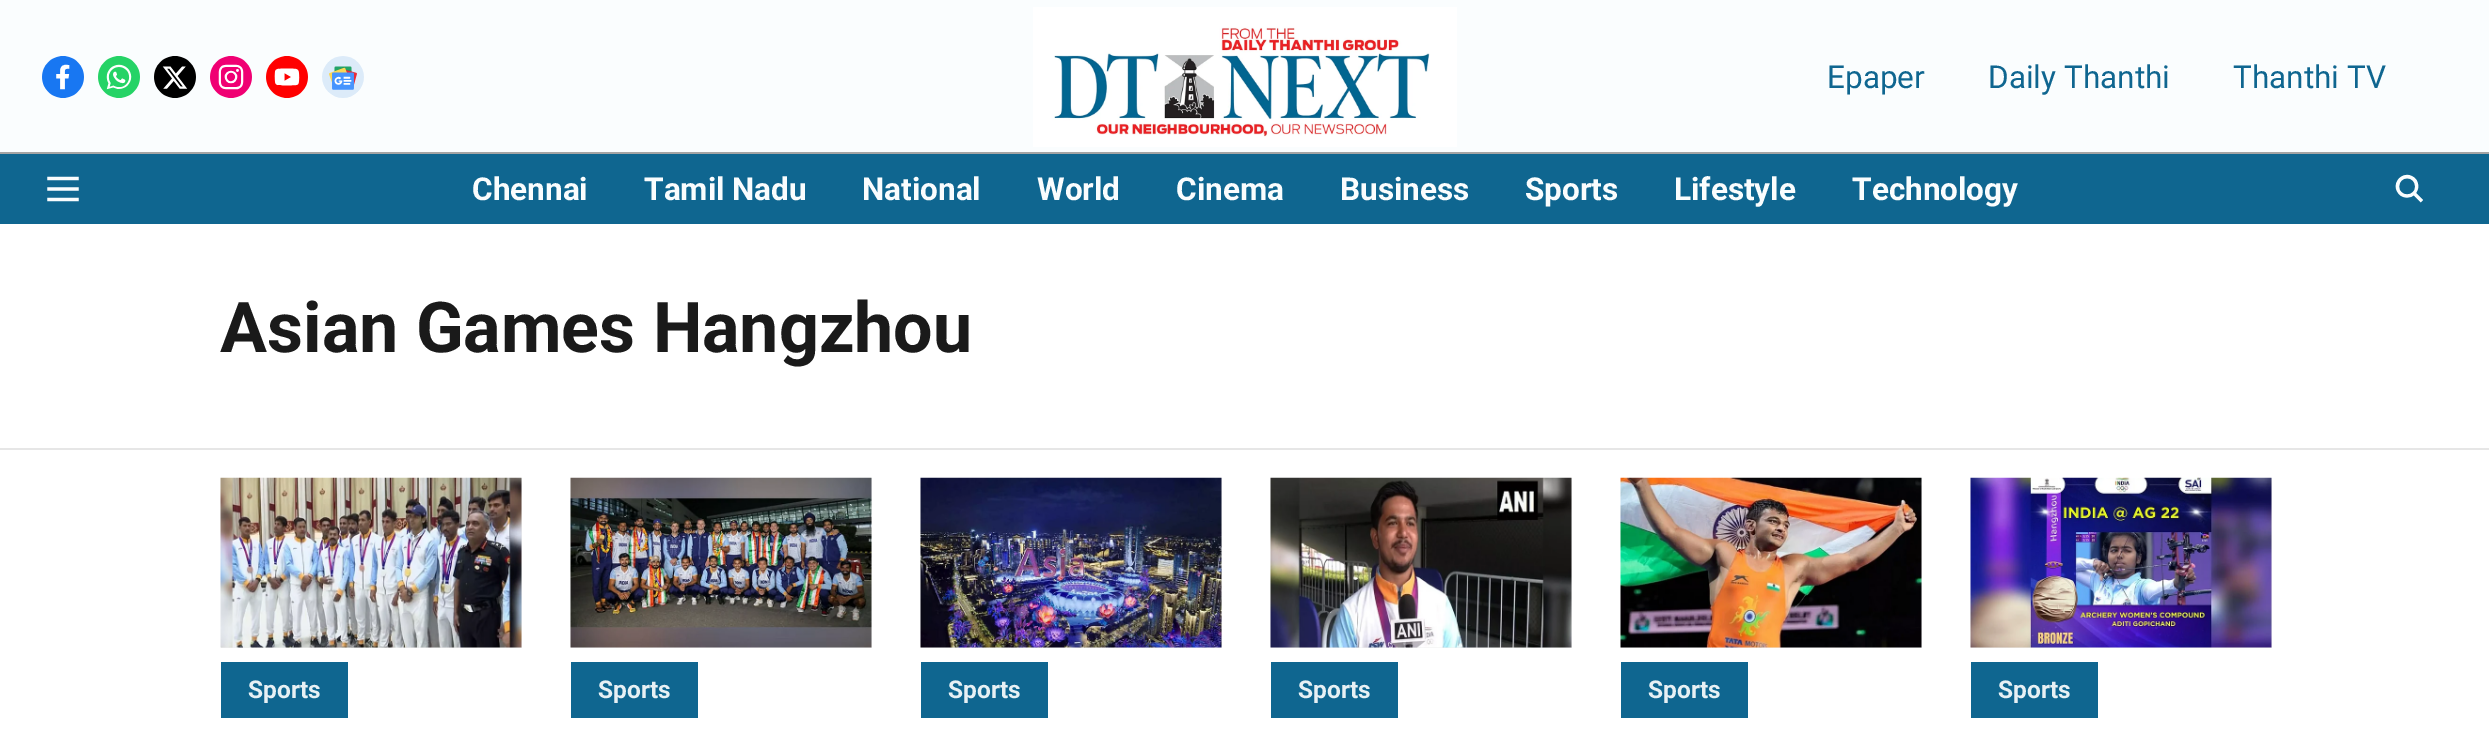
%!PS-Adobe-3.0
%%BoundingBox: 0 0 2489 731
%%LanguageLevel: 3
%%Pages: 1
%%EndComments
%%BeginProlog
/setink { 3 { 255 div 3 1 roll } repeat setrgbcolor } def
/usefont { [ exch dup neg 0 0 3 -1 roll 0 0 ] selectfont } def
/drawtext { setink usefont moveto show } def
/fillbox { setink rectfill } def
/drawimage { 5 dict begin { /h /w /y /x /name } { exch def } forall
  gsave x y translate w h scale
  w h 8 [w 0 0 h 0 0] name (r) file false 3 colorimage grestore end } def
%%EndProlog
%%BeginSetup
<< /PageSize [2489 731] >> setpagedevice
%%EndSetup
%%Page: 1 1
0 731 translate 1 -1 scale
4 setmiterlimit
0 0 2489 731 255 255 255 fillbox
0 0 2489 152 250 253 254 fillbox
0 152 2489 2 164 164 164 fillbox
(assets/img1.rgb) 42 56 42 42 drawimage
(assets/img2.rgb) 98 56 42 42 drawimage
(assets/img3.rgb) 154 56 42 42 drawimage
(assets/img4.rgb) 210 56 42 42 drawimage
(assets/img5.rgb) 266 56 42 42 drawimage
(assets/img6.rgb) 322 56 42 42 drawimage
(assets/img7.rgb) 1033 7 424 140 drawimage
(Epaper) 1827 88 /Roboto-Regular 31.5 15 102 144 drawtext
(Daily Thanthi) 1988 88 /Roboto-Regular 31.5 15 102 144 drawtext
(Thanthi TV) 2233 88 /Roboto-Regular 31.5 15 102 144 drawtext
0 154 2489 70 15 102 144 fillbox
(assets/img8.rgb) 47 176 32 26 drawimage
(Chennai) 472 200 /Roboto-Bold 31.5 250 253 254 drawtext
(Tamil Nadu) 644 200 /Roboto-Bold 31.5 250 253 254 drawtext
(National) 862 200 /Roboto-Bold 31.5 250 253 254 drawtext
(World) 1037 200 /Roboto-Bold 31.5 250 253 254 drawtext
(Cinema) 1176 200 /Roboto-Bold 31.5 250 253 254 drawtext
(Business) 1340 200 /Roboto-Bold 31.5 250 253 254 drawtext
(Sports) 1525 200 /Roboto-Bold 31.5 250 253 254 drawtext
(Lifestyle) 1674 200 /Roboto-Bold 31.5 250 253 254 drawtext
(Technology) 1852 200 /Roboto-Bold 31.5 250 253 254 drawtext
(assets/img9.rgb) 2395 174 28 29 drawimage
0 448 2489 2 230 230 230 fillbox
(Asian Games Hangzhou) 220 352 /Roboto-Bold 70 26 26 26 drawtext
221 478 301 170 240 240 240 fillbox
(assets/img10.rgb) 220 477 302 171 drawimage
221 662 127 56 15 102 144 fillbox
(Sports) 248 698 /Roboto-Bold 24.5 231 240 244 drawtext
571 478 301 170 240 240 240 fillbox
(assets/img11.rgb) 570 477 302 171 drawimage
571 662 127 56 15 102 144 fillbox
(Sports) 598 698 /Roboto-Bold 24.5 231 240 244 drawtext
921 478 301 170 240 240 240 fillbox
(assets/img12.rgb) 920 477 302 171 drawimage
921 662 127 56 15 102 144 fillbox
(Sports) 948 698 /Roboto-Bold 24.5 231 240 244 drawtext
1271 478 301 170 240 240 240 fillbox
(assets/img13.rgb) 1270 477 302 171 drawimage
1271 662 127 56 15 102 144 fillbox
(Sports) 1298 698 /Roboto-Bold 24.5 231 240 244 drawtext
1621 478 301 170 240 240 240 fillbox
(assets/img14.rgb) 1620 477 302 171 drawimage
1621 662 127 56 15 102 144 fillbox
(Sports) 1648 698 /Roboto-Bold 24.5 231 240 244 drawtext
1971 478 301 170 240 240 240 fillbox
(assets/img15.rgb) 1970 477 302 171 drawimage
1971 662 127 56 15 102 144 fillbox
(Sports) 1998 698 /Roboto-Bold 24.5 231 240 244 drawtext
showpage
%%EOF
